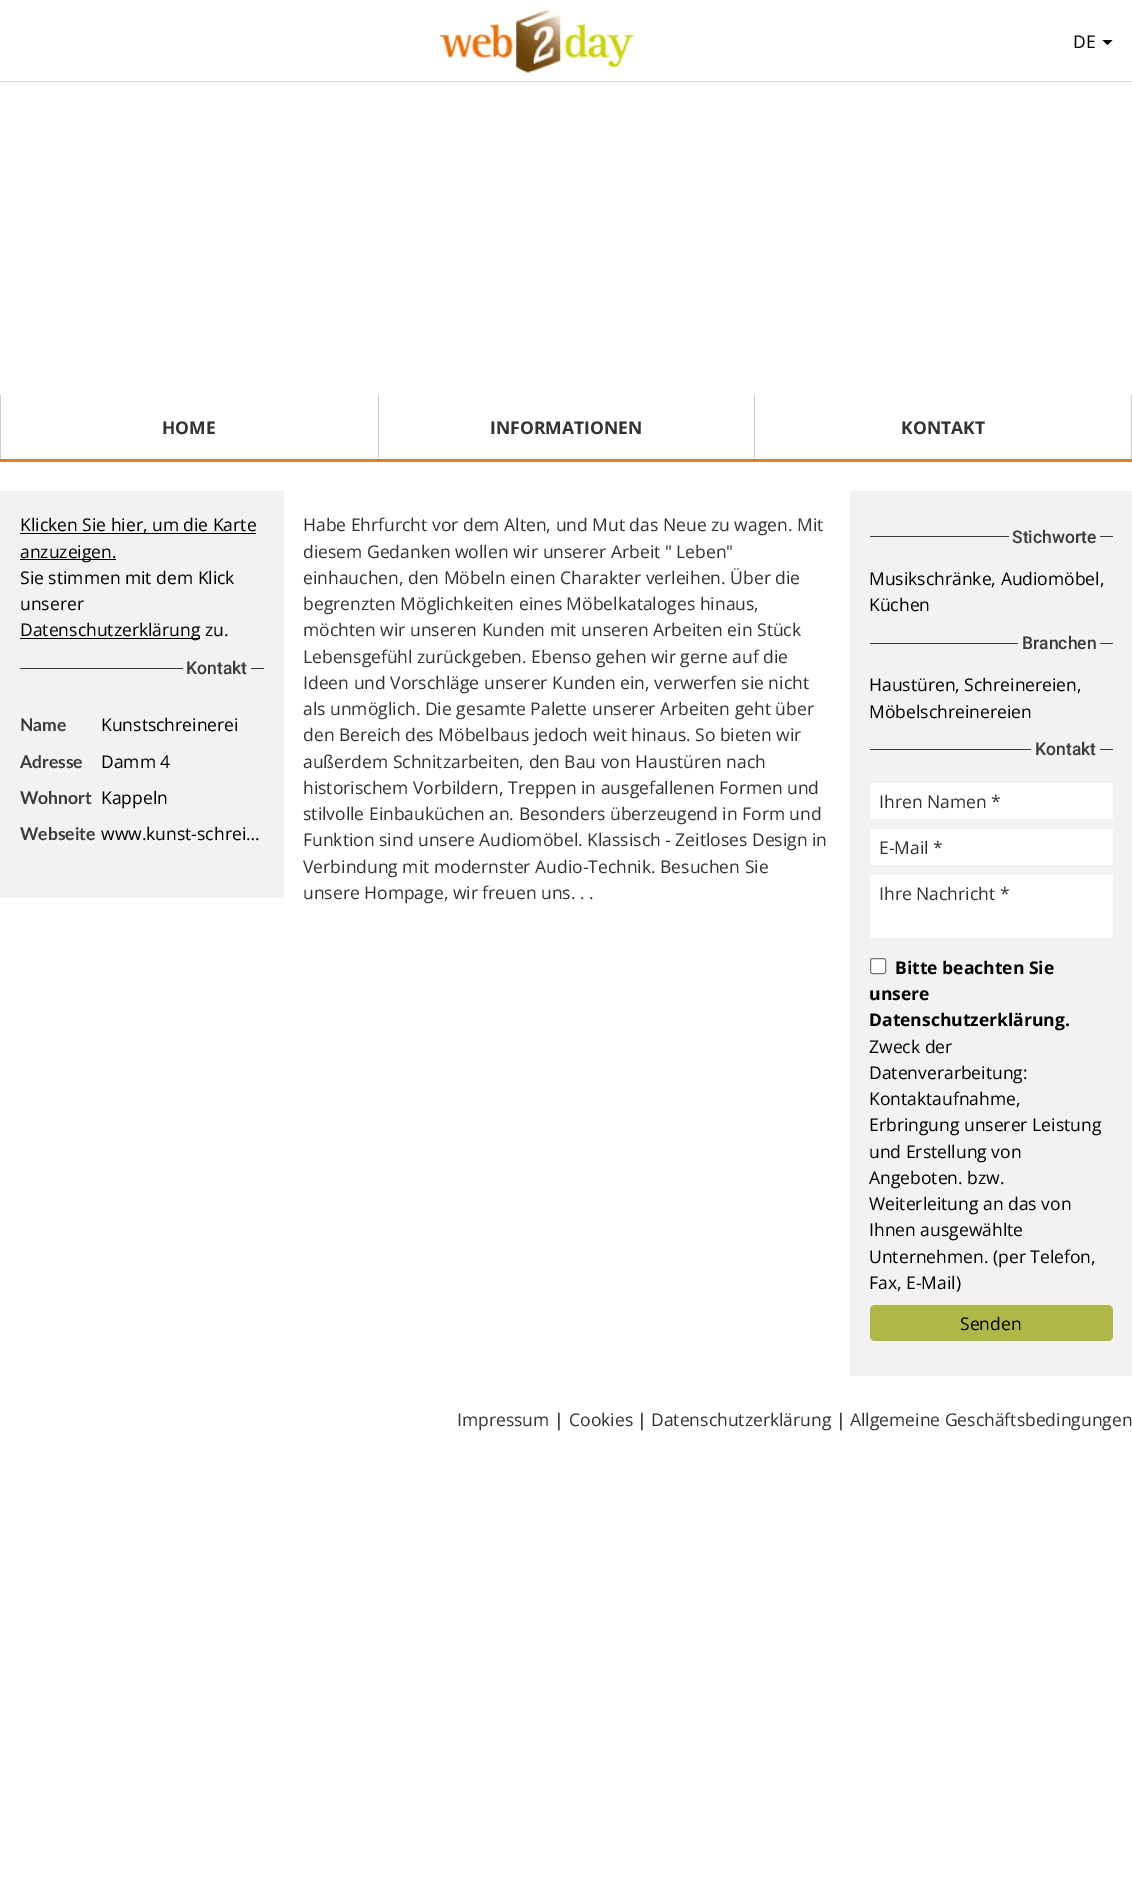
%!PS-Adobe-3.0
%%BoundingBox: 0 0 1132 1888
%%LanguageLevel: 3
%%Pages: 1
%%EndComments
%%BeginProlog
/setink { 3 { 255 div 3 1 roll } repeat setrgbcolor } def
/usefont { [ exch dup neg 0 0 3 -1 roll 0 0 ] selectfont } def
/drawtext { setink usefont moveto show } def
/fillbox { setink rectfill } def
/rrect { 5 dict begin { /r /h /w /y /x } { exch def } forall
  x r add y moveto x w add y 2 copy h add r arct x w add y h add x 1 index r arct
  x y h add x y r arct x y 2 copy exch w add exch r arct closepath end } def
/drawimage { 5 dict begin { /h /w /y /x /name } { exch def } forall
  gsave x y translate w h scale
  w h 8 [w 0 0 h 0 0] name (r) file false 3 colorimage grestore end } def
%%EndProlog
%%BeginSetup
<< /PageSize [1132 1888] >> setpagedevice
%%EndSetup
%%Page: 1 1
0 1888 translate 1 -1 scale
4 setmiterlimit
0 0 1132 1888 255 255 255 fillbox
0 459 1132 3 236 126 17 fillbox
0 81 1132 1 218 218 218 fillbox
(assets/img1.rgb) 440 10 194 63 drawimage
(DE) 1073 48 /OpenSans-Regular 17.5 0 0 0 drawtext
1102.5 40 moveto 1112.5 40 lineto 1107.5 45 lineto closepath fill
0 395 1 64 204 204 204 fillbox
(HOME) 162 434 /OpenSans-Bold 17.5 51 51 51 drawtext
378 395 1 64 204 204 204 fillbox
(INFORMATIONEN) 490 434 /OpenSans-Bold 17.5 51 51 51 drawtext
1131 395 1 64 204 204 204 fillbox
754 395 1 64 204 204 204 fillbox
(KONTAKT) 901 434 /OpenSans-Bold 17.5 51 51 51 drawtext
0 491 284 407 242 242 242 fillbox
20 533 236 1 0 0 0 fillbox
(Klicken Sie hier, um die Karte) 20 531 /OpenSans-Regular 17.5 0 0 0 drawtext
20 559 96 1 0 0 0 fillbox
(anzuzeigen.) 20 558 /OpenSans-Regular 17.5 0 0 0 drawtext
(Sie stimmen mit dem Klick) 20 584 /OpenSans-Regular 17.5 0 0 0 drawtext
(unserer) 20 610 /OpenSans-Regular 17.5 0 0 0 drawtext
20 638 180 1 0 0 0 fillbox
(Datenschutzerklärung zu.) 20 636 /OpenSans-Regular 17.5 0 0 0 drawtext
20 668 244 1 58 60 60 fillbox
183 668 68 1 242 242 242 fillbox
(Kontakt) 186 674 /Roboto-Medium 17.5 58 60 60 drawtext
(Name) 20 731 /Lato-Bold 17.5 58 60 60 drawtext
(Kunstschreinerei) 101 731 /OpenSans-Regular 17.5 0 0 0 drawtext
(Adresse) 20 768 /Lato-Bold 17.5 58 60 60 drawtext
(Damm 4) 101 768 /OpenSans-Regular 17.5 0 0 0 drawtext
(Wohnort) 20 804 /Lato-Bold 17.5 58 60 60 drawtext
(Kappeln) 101 804 /OpenSans-Regular 17.5 0 0 0 drawtext
(Webseite) 20 840 /Lato-Bold 17.5 58 60 60 drawtext
(www.kunst-schrei…) 101 840 /OpenSans-Regular 17.5 0 0 0 drawtext
(Habe Ehrfurcht vor dem Alten, und Mut das Neue zu wagen. Mit) 303 531 /OpenSans-Regular 17.5 51 51 51 drawtext
(diesem Gedanken wollen wir unserer Arbeit " Leben") 303 558 /OpenSans-Regular 17.5 51 51 51 drawtext
(einhauchen, den Möbeln einen Charakter verleihen. Über die) 303 584 /OpenSans-Regular 17.5 51 51 51 drawtext
(begrenzten Möglichkeiten eines Möbelkataloges hinaus,) 303 610 /OpenSans-Regular 17.5 51 51 51 drawtext
(möchten wir unseren Kunden mit unseren Arbeiten ein Stück) 303 636 /OpenSans-Regular 17.5 51 51 51 drawtext
(Lebensgefühl zurückgeben. Ebenso gehen wir gerne auf die) 303 663 /OpenSans-Regular 17.5 51 51 51 drawtext
(Ideen und Vorschläge unserer Kunden ein, verwerfen sie nicht) 303 689 /OpenSans-Regular 17.5 51 51 51 drawtext
(als unmöglich. Die gesamte Palette unserer Arbeiten geht über) 303 715 /OpenSans-Regular 17.5 51 51 51 drawtext
(den Bereich des Möbelbaus jedoch weit hinaus. So bieten wir) 303 741 /OpenSans-Regular 17.5 51 51 51 drawtext
(außerdem Schnitzarbeiten, den Bau von Haustüren nach) 303 768 /OpenSans-Regular 17.5 51 51 51 drawtext
(historischem Vorbildern, Treppen in ausgefallenen Formen und) 303 794 /OpenSans-Regular 17.5 51 51 51 drawtext
(stilvolle Einbauküchen an. Besonders überzeugend in Form und) 303 820 /OpenSans-Regular 17.5 51 51 51 drawtext
(Funktion sind unsere Audiomöbel. Klassisch - Zeitloses Design in) 303 846 /OpenSans-Regular 17.5 51 51 51 drawtext
(Verbindung mit modernster Audio-Technik. Besuchen Sie) 303 873 /OpenSans-Regular 17.5 51 51 51 drawtext
(unsere Hompage, wir freuen uns. . .) 303 899 /OpenSans-Regular 17.5 51 51 51 drawtext
850 491 282 885 242 242 242 fillbox
870 536 243 1 58 60 60 fillbox
1009 536 91 1 242 242 242 fillbox
(Stichworte) 1012 543 /Roboto-Medium 17.5 58 60 60 drawtext
(Musikschränke, Audiomöbel,) 869 585 /OpenSans-Regular 17.5 0 0 0 drawtext
(Küchen) 869 611 /OpenSans-Regular 17.5 0 0 0 drawtext
870 643 243 1 58 60 60 fillbox
1018 643 82 1 242 242 242 fillbox
(Branchen) 1022 649 /Roboto-Medium 17.5 58 60 60 drawtext
(Haustüren, Schreinereien,) 869 691 /OpenSans-Regular 17.5 0 0 0 drawtext
(Möbelschreinereien) 869 718 /OpenSans-Regular 17.5 0 0 0 drawtext
870 749 243 1 58 60 60 fillbox
1031 749 69 1 242 242 242 fillbox
(Kontakt) 1035 755 /Roboto-Medium 17.5 58 60 60 drawtext
870 783 243 36 255 255 255 fillbox
(Ihren Namen *) 879 808 /OpenSans-Regular 17.5 51 51 51 drawtext
870 829 243 36 255 255 255 fillbox
(E-Mail *) 879 854 /OpenSans-Regular 17.5 51 51 51 drawtext
870 875 243 63 255 255 255 fillbox
(Ihre Nachricht *) 879 900 /OpenSans-Regular 17.5 51 51 51 drawtext
255 255 255 setink
870.5 958.5 15 15 2 rrect gsave fill grestore
118 118 118 setink
stroke
(Bitte beachten Sie) 895 974 /OpenSans-Bold 17.5 0 0 0 drawtext
(unsere) 869 1000 /OpenSans-Bold 17.5 0 0 0 drawtext
(Datenschutzerklärung.) 869 1026 /OpenSans-Bold 17.5 0 0 0 drawtext
(Zweck der) 869 1053 /OpenSans-Regular 17.5 0 0 0 drawtext
(Datenverarbeitung:) 869 1079 /OpenSans-Regular 17.5 0 0 0 drawtext
(Kontaktaufnahme,) 869 1105 /OpenSans-Regular 17.5 0 0 0 drawtext
(Erbringung unserer Leistung) 869 1131 /OpenSans-Regular 17.5 0 0 0 drawtext
(und Erstellung von) 869 1158 /OpenSans-Regular 17.5 0 0 0 drawtext
(Angeboten. bzw.) 869 1184 /OpenSans-Regular 17.5 0 0 0 drawtext
(Weiterleitung an das von) 869 1210 /OpenSans-Regular 17.5 0 0 0 drawtext
(Ihnen ausgewählte) 869 1236 /OpenSans-Regular 17.5 0 0 0 drawtext
(Unternehmen. \(per Telefon,) 869 1263 /OpenSans-Regular 17.5 0 0 0 drawtext
(Fax, E-Mail\)) 869 1289 /OpenSans-Regular 17.5 0 0 0 drawtext
174 184 71 setink
870 1305 243 36 5 rrect fill
(Senden) 960 1330 /OpenSans-Regular 17.5 0 0 0 drawtext
(Impressum) 457 1426 /OpenSans-Regular 17.5 51 51 51 drawtext
(|) 554 1426 /OpenSans-Regular 17.5 0 0 0 drawtext
(Cookies) 569 1426 /OpenSans-Regular 17.5 51 51 51 drawtext
(|) 637 1426 /OpenSans-Regular 17.5 0 0 0 drawtext
(Datenschutzerklärung) 651 1426 /OpenSans-Regular 17.5 51 51 51 drawtext
(|) 836 1426 /OpenSans-Regular 17.5 0 0 0 drawtext
(Allgemeine Geschäftsbedingungen) 850 1426 /OpenSans-Regular 17.5 51 51 51 drawtext
showpage
%%EOF
